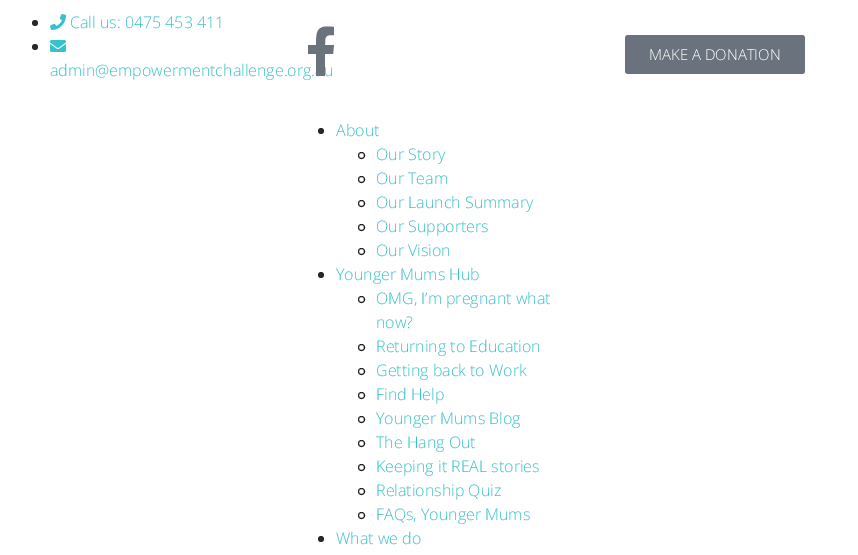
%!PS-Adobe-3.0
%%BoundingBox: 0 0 858 555
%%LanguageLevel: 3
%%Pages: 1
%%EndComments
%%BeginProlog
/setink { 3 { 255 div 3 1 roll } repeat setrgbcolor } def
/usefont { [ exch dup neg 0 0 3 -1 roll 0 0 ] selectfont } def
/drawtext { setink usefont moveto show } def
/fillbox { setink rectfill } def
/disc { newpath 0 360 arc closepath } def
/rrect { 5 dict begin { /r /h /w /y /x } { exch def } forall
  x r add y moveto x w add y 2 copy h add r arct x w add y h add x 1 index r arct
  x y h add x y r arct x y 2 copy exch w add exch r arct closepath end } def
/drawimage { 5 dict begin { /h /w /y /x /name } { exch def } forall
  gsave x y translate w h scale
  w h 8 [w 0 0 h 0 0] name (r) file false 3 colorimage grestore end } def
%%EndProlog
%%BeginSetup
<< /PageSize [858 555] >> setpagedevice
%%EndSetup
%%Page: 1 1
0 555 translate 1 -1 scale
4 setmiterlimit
0 0 858 555 255 255 255 fillbox
40 40 40 setink
35 23 3 disc fill
(assets/img1.rgb) 50 14 16 16 drawimage
(Call us: 0475 453 411) 70 28 /OpenSans-Light 16 54 193 204 drawtext
40 40 40 setink
35 47 3 disc fill
(assets/img2.rgb) 50 40 16 12 drawimage
(admin@empowermentchallenge.org.au) 50 76 /OpenSans-Light 16 54 193 204 drawtext
105 114 125 setink
333 54 moveto 325 54 lineto 325 76 lineto 316 76 lineto 316 54 lineto 308 54 lineto 308 45 lineto 316 45 lineto 316 29 318 25 334 27 curveto 334 35 lineto 325 35 325 36 325 45 curveto 334 45 lineto closepath fill
625 35 180 39 3 rrect fill
(MAKE A DONATION) 649 60 /OpenSans-Light 15 255 255 255 drawtext
40 40 40 setink
321 131 3 disc fill
(About) 336 136 /OpenSans-Light 16 54 193 204 drawtext
40 40 40 setink
361.5 155.5 3 disc stroke
(Our Story) 376 160 /OpenSans-Light 16 54 193 204 drawtext
40 40 40 setink
361.5 179.5 3 disc stroke
(Our Team) 376 184 /OpenSans-Light 16 54 193 204 drawtext
40 40 40 setink
361.5 203.5 3 disc stroke
(Our Launch Summary) 376 208 /OpenSans-Light 16 54 193 204 drawtext
40 40 40 setink
361.5 227.5 3 disc stroke
(Our Supporters) 376 232 /OpenSans-Light 16 54 193 204 drawtext
40 40 40 setink
361.5 251.5 3 disc stroke
(Our Vision) 376 256 /OpenSans-Light 16 54 193 204 drawtext
40 40 40 setink
321 275 3 disc fill
(Younger Mums Hub) 336 280 /OpenSans-Light 16 54 193 204 drawtext
40 40 40 setink
361.5 299.5 3 disc stroke
(OMG, I’m pregnant what) 376 304 /OpenSans-Light 16 54 193 204 drawtext
(now?) 376 328 /OpenSans-Light 16 54 193 204 drawtext
40 40 40 setink
361.5 347.5 3 disc stroke
(Returning to Education) 376 352 /OpenSans-Light 16 54 193 204 drawtext
40 40 40 setink
361.5 371.5 3 disc stroke
(Getting back to Work) 376 376 /OpenSans-Light 16 54 193 204 drawtext
40 40 40 setink
361.5 395.5 3 disc stroke
(Find Help) 376 400 /OpenSans-Light 16 54 193 204 drawtext
40 40 40 setink
361.5 419.5 3 disc stroke
(Younger Mums Blog) 376 424 /OpenSans-Light 16 54 193 204 drawtext
40 40 40 setink
361.5 443.5 3 disc stroke
(The Hang Out) 376 448 /OpenSans-Light 16 54 193 204 drawtext
40 40 40 setink
361.5 467.5 3 disc stroke
(Keeping it REAL stories) 376 472 /OpenSans-Light 16 54 193 204 drawtext
40 40 40 setink
361.5 491.5 3 disc stroke
(Relationship Quiz) 376 496 /OpenSans-Light 16 54 193 204 drawtext
40 40 40 setink
361.5 515.5 3 disc stroke
(FAQs, Younger Mums) 376 520 /OpenSans-Light 16 54 193 204 drawtext
40 40 40 setink
321 539 3 disc fill
(What we do) 336 544 /OpenSans-Light 16 54 193 204 drawtext
showpage
%%EOF
